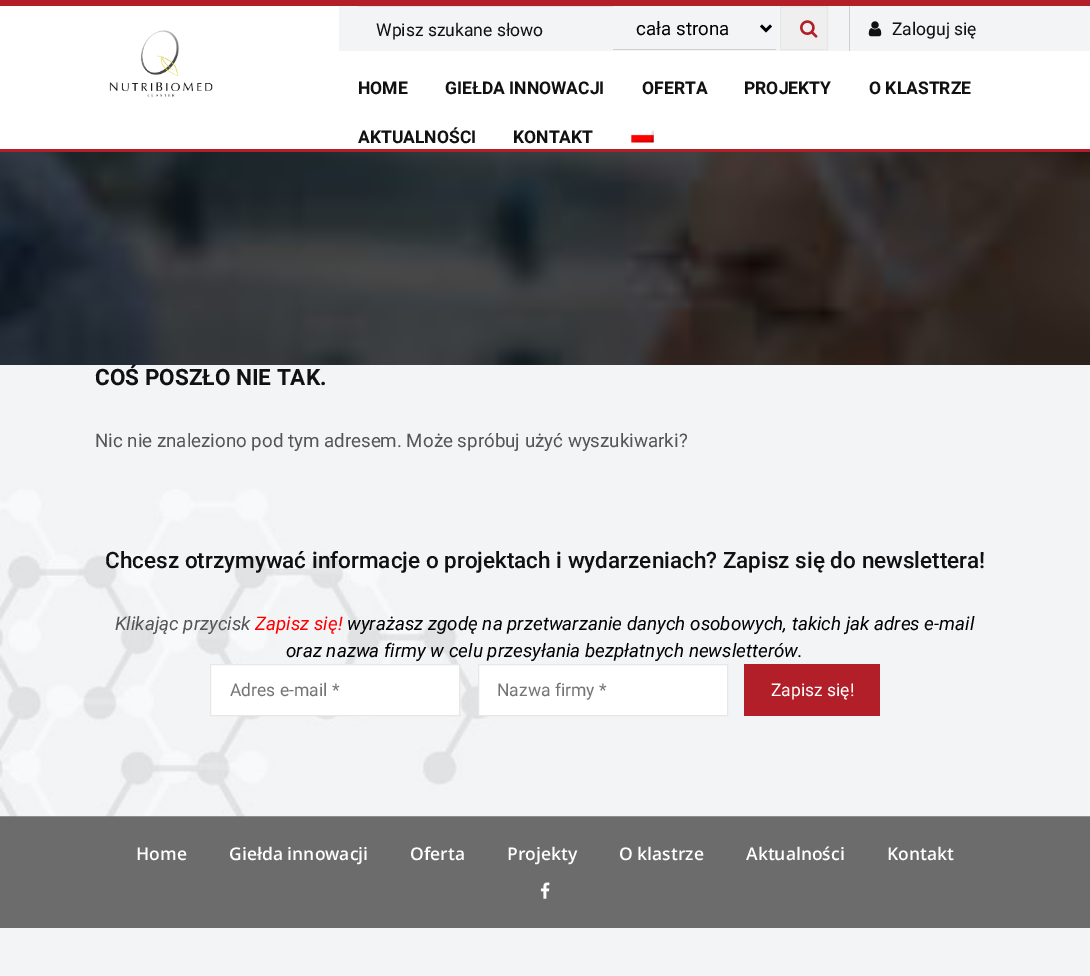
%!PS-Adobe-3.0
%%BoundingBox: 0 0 1090 976
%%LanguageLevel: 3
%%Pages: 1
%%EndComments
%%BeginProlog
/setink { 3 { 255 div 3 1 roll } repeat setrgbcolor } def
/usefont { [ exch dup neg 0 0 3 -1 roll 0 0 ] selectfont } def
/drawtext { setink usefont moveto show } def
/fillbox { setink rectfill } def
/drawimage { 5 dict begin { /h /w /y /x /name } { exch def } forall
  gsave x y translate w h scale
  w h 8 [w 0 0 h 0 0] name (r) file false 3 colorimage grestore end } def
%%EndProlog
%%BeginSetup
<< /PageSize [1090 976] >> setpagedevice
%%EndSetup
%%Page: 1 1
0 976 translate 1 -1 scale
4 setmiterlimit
0 0 1090 976 243 244 245 fillbox
0 6 1090 143 255 255 255 fillbox
0 0 1090 6 178 31 40 fillbox
0 149 1090 3 178 31 40 fillbox
(assets/img1.rgb) 109 30 104 67 drawimage
339 6 751 45 243 244 245 fillbox
358 6 255 1 225 226 227 fillbox
(Wpisz szukane słowo) 376 36 /Roboto-Regular 17.5 17 17 17 drawtext
613 49 163 1 208 208 208 fillbox
0 0 0 setink
2.5 setlinewidth
761 25.5 moveto 766 30.5 lineto 771 25.5 lineto stroke
(cała strona) 636 35 /Roboto-Regular 18.75 0 0 0 drawtext
239 239 239 setink
780.5 6.5 moveto 827.5 6.5 lineto 827.5 49.5 lineto 780.5 49.5 lineto closepath gsave fill grestore
233 230 230 setink
1 setlinewidth
stroke
(assets/img2.rgb) 800 20 18 18 drawimage
849 6 1 45 208 208 208 fillbox
(assets/img3.rgb) 868 21 14 16 drawimage
(Zaloguj się) 892 35 /Roboto-Regular 17.5 17 17 17 drawtext
(HOME) 358 94 /Roboto-Bold 17.5 17 17 17 drawtext
(GIEŁDA INNOWACJI) 445 94 /Roboto-Bold 17.5 17 17 17 drawtext
(OFERTA) 642 94 /Roboto-Bold 17.5 17 17 17 drawtext
(PROJEKTY) 744 94 /Roboto-Bold 17.5 17 17 17 drawtext
(O KLASTRZE) 869 94 /Roboto-Bold 17.5 17 17 17 drawtext
(AKTUALNOŚCI) 358 143 /Roboto-Bold 17.5 17 17 17 drawtext
(KONTAKT) 513 143 /Roboto-Bold 17.5 17 17 17 drawtext
(assets/img4.rgb) 631 130 23 13 drawimage
(assets/img5.rgb) 0 152 1090 213 drawimage
(COŚ POSZŁO NIE TAK.) 95 385 /Roboto-Bold 22.5 17 17 17 drawtext
(Nic nie znaleziono pod tym adresem. Może spróbuj użyć wyszukiwarki?) 95 447 /Roboto-Regular 18.75 85 85 85 drawtext
0 816 1090 112 108 108 108 fillbox
(assets/img6.rgb) 0 489 1090 328 drawimage
(Chcesz otrzymywać informacje o projektach i wydarzeniach? Zapisz się do newslettera!) 105 568 /Roboto-Medium 22.5 17 17 17 drawtext
(Klikając przycisk) 115 630 /Roboto-Italic 18.75 85 85 85 drawtext
(Zapisz się!) 255 630 /Roboto-Italic 18.75 255 0 0 drawtext
(wyrażasz zgodę na przetwarzanie danych osobowych, takich jak adres e-mail) 347 630 /Roboto-Italic 18.75 0 0 0 drawtext
(oraz nazwa firmy w celu przesyłania bezpłatnych newsletterów.) 286 657 /Roboto-Italic 18.75 0 0 0 drawtext
255 255 255 setink
210.5 664.5 moveto 459.5 664.5 lineto 459.5 715.5 lineto 210.5 715.5 lineto closepath gsave fill grestore
233 230 230 setink
stroke
(Adres e-mail *) 230 696 /Roboto-Regular 17.5 117 117 117 drawtext
255 255 255 setink
478.5 664.5 moveto 727.5 664.5 lineto 727.5 715.5 lineto 478.5 715.5 lineto closepath gsave fill grestore
233 230 230 setink
stroke
(Nazwa firmy *) 497 696 /Roboto-Regular 17.5 117 117 117 drawtext
744 664 136 52 178 31 40 fillbox
(Zapisz się!) 771 696 /Roboto-Regular 17.5 255 255 255 drawtext
(Home) 136 860 /OpenSans-SemiBold 17.5 255 255 255 drawtext
(Giełda innowacji) 229 860 /OpenSans-SemiBold 17.5 255 255 255 drawtext
(Oferta) 410 860 /OpenSans-SemiBold 17.5 255 255 255 drawtext
(Projekty) 507 860 /OpenSans-SemiBold 17.5 255 255 255 drawtext
(O klastrze) 619 860 /OpenSans-SemiBold 17.5 255 255 255 drawtext
(Aktualności) 746 860 /OpenSans-SemiBold 17.5 255 255 255 drawtext
(Kontakt) 887 860 /OpenSans-SemiBold 17.5 255 255 255 drawtext
(assets/img7.rgb) 540 882 10 17 drawimage
showpage
%%EOF
